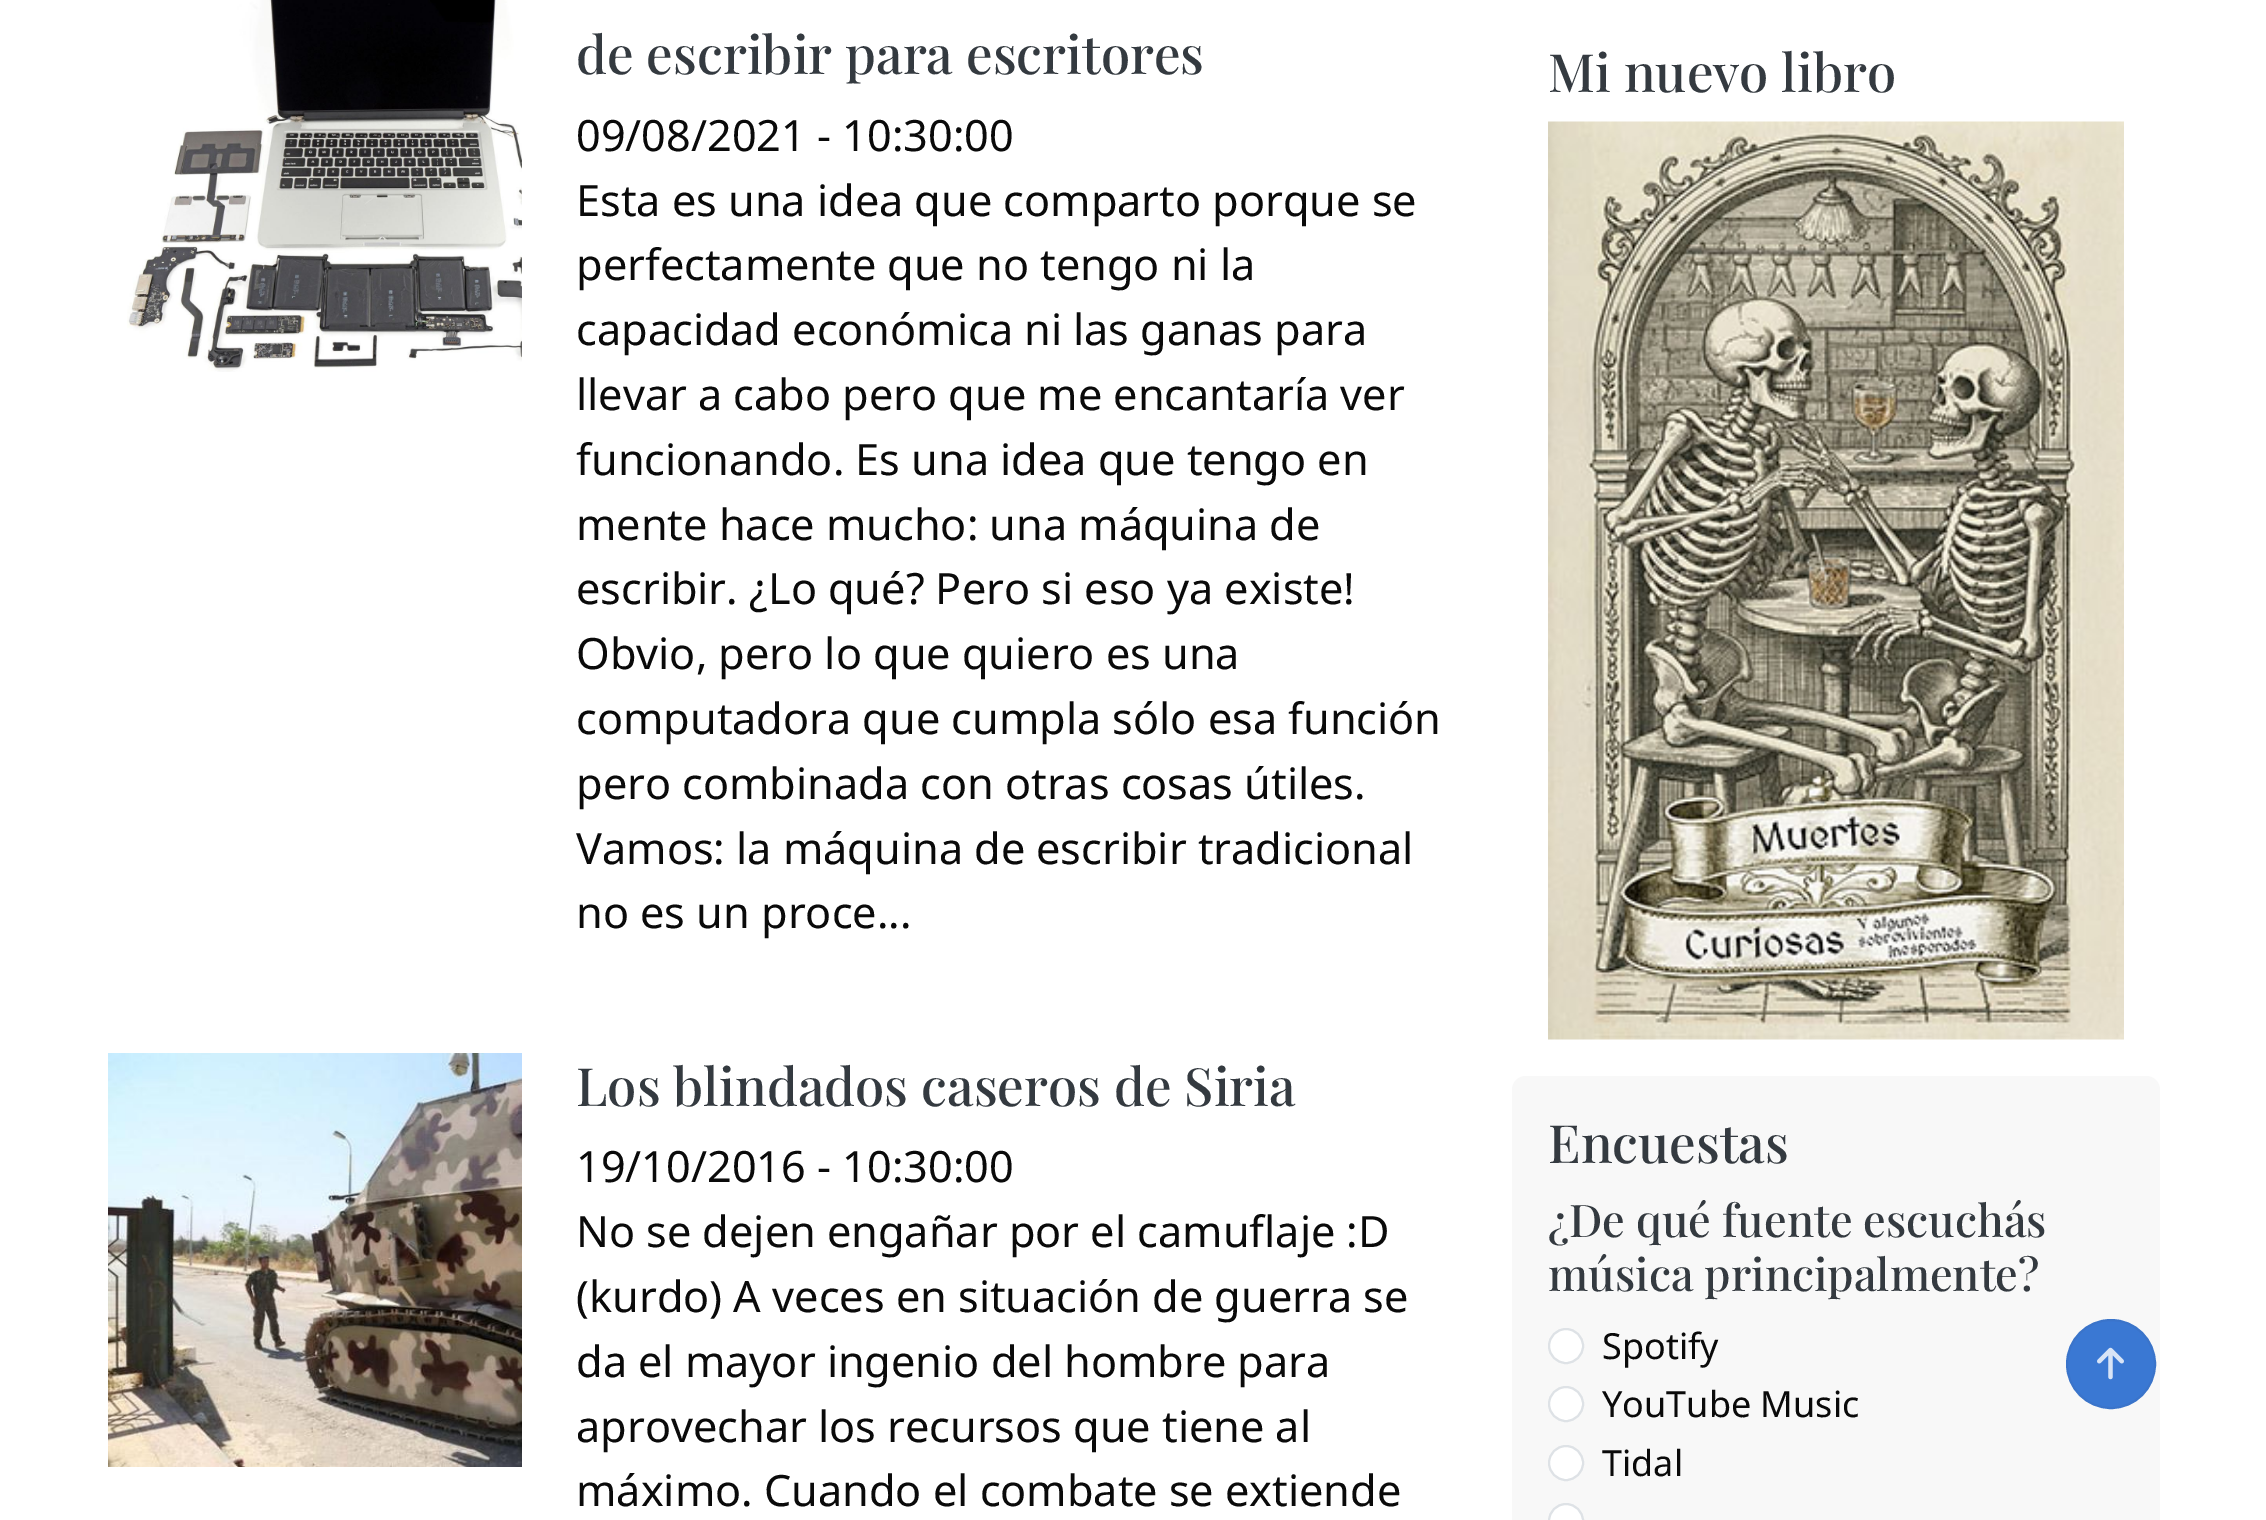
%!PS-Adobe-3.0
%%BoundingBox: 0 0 2266 1520
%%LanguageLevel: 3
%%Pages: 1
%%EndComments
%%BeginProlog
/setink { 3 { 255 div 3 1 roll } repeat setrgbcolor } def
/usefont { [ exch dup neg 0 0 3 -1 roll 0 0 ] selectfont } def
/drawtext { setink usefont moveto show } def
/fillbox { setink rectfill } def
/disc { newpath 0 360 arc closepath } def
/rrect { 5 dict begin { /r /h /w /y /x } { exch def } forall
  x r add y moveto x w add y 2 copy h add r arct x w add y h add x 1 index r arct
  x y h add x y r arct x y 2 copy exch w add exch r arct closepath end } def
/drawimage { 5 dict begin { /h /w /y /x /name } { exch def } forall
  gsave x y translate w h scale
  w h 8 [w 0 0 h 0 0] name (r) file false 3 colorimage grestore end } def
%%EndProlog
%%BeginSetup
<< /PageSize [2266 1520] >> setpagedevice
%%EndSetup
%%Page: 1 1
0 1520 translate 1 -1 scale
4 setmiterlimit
0 0 2266 1520 255 255 255 fillbox
(assets/img1.rgb) 127 0 395 372 drawimage
(de escribir para escritores) 576 74 /PlayfairDisplay-Medium 52.75 52 58 64 drawtext
(09/08/2021 - 10:30:00) 576 151 /NotoSans-Regular 43.2 10 10 10 drawtext
(Esta es una idea que comparto porque se) 576 216 /NotoSans-Regular 43.2 10 10 10 drawtext
(perfectamente que no tengo ni la) 576 280 /NotoSans-Regular 43.2 10 10 10 drawtext
(capacidad económica ni las ganas para) 576 345 /NotoSans-Regular 43.2 10 10 10 drawtext
(llevar a cabo pero que me encantaría ver) 576 410 /NotoSans-Regular 43.2 10 10 10 drawtext
(funcionando. Es una idea que tengo en) 576 475 /NotoSans-Regular 43.2 10 10 10 drawtext
(mente hace mucho: una máquina de) 576 540 /NotoSans-Regular 43.2 10 10 10 drawtext
(escribir. ¿Lo qué? Pero si eso ya existe!) 576 604 /NotoSans-Regular 43.2 10 10 10 drawtext
(Obvio, pero lo que quiero es una) 576 669 /NotoSans-Regular 43.2 10 10 10 drawtext
(computadora que cumpla sólo esa función) 576 734 /NotoSans-Regular 43.2 10 10 10 drawtext
(pero combinada con otras cosas útiles.) 576 799 /NotoSans-Regular 43.2 10 10 10 drawtext
(Vamos: la máquina de escribir tradicional) 576 864 /NotoSans-Regular 43.2 10 10 10 drawtext
(no es un proce...) 576 928 /NotoSans-Regular 43.2 10 10 10 drawtext
(assets/img2.rgb) 108 1053 414 414 drawimage
(Los blindados caseros de Siria) 576 1106 /PlayfairDisplay-Medium 52.75 52 58 64 drawtext
(19/10/2016 - 10:30:00) 576 1182 /NotoSans-Regular 43.2 10 10 10 drawtext
(No se dejen engañar por el camuflaje :D) 576 1247 /NotoSans-Regular 43.2 10 10 10 drawtext
(\(kurdo\) A veces en situación de guerra se) 576 1312 /NotoSans-Regular 43.2 10 10 10 drawtext
(da el mayor ingenio del hombre para) 576 1377 /NotoSans-Regular 43.2 10 10 10 drawtext
(aprovechar los recursos que tiene al) 576 1442 /NotoSans-Regular 43.2 10 10 10 drawtext
(máximo. Cuando el combate se extiende) 576 1506 /NotoSans-Regular 43.2 10 10 10 drawtext
(Mi nuevo libro) 1548 92 /PlayfairDisplay-Medium 52.75 52 58 64 drawtext
(assets/img3.rgb) 1548 121 576 919 drawimage
248 248 248 setink
1512 1076 648 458 14 rrect fill
(Encuestas) 1548 1163 /PlayfairDisplay-Medium 52.75 52 58 64 drawtext
(¿De qué fuente escuchás) 1548 1237 /PlayfairDisplay-Medium 45 52 58 64 drawtext
(música principalmente?) 1548 1291 /PlayfairDisplay-Medium 45 52 58 64 drawtext
255 255 255 setink
1566 1346 17 disc gsave fill grestore
222 226 230 setink
2 setlinewidth
stroke
(Spotify) 1602 1359 /NotoSans-Regular 36 10 10 10 drawtext
255 255 255 setink
1566 1404 17 disc gsave fill grestore
222 226 230 setink
stroke
(YouTube Music) 1602 1417 /NotoSans-Regular 36 10 10 10 drawtext
255 255 255 setink
1566 1463 17 disc gsave fill grestore
222 226 230 setink
stroke
(Tidal) 1602 1476 /NotoSans-Regular 36 10 10 10 drawtext
255 255 255 setink
1566 1521 17 disc gsave fill grestore
222 226 230 setink
stroke
58 120 211 setink
2111 1364 44 disc gsave fill grestore
58 116 202 setink
stroke
(assets/img4.rgb) 2097 1347 27 33 drawimage
showpage
%%EOF
